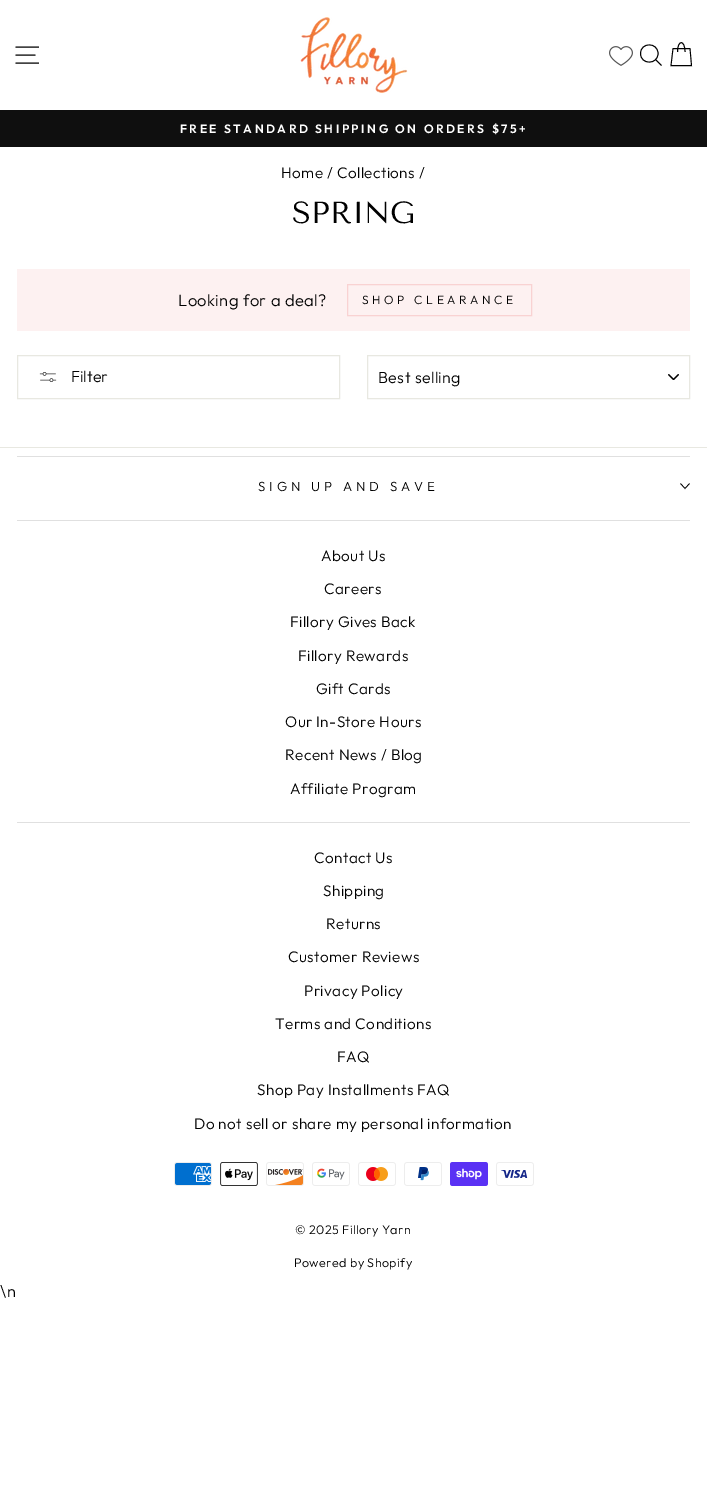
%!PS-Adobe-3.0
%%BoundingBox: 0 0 707 1486
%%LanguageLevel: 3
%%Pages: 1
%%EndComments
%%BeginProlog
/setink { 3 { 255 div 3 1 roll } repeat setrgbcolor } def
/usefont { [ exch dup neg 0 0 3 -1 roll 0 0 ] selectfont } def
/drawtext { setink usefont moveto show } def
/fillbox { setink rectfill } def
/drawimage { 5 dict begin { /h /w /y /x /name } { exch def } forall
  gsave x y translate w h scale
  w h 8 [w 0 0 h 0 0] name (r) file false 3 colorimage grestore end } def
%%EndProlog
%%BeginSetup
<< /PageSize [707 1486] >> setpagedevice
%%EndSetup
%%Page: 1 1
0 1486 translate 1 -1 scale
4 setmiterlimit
0 0 707 1486 255 255 255 fillbox
0 0 0 setink
0.9 setlinewidth
15.5 47 moveto 39 47 lineto 15.5 55 moveto 35.5 55 lineto 15.5 63 moveto 39 63 lineto stroke
(assets/img1.rgb) 300 17 108 76 drawimage
(assets/img2.rgb) 609 46 24 20 drawimage
658 53.5 moveto 658 65 640.5 65 640.5 53.5 curveto 640.5 42 658 42 658 53.5 curveto closepath 661.5 65.5 moveto 655.5 59.5 lineto stroke
677.5 52 moveto 677.5 39.5 685 39.5 685 52 curveto 673 48.5 moveto 690 48.5 lineto 691.5 65.5 lineto 671 65.5 lineto closepath stroke
0 110 707 37 15 15 15 fillbox
/Outfit-SemiBold 12.15 usefont
255 255 255 setink
180 133 moveto 2.45 0 (FREE STANDARD SHIPPING ON ORDERS $75+) ashow
/Outfit-Light 15.3 usefont
0 0 0 setink
281 178 moveto 0.4 0 (Home / Collections /) ashow
(SPRING) 292 223 /TenorSans-Regular 30.5 0 0 0 drawtext
17 269 673 62 253 241 241 fillbox
/Outfit-Light 16.5 usefont
0 0 0 setink
178 306 moveto 0.4 0 (Looking for a deal?) ashow
249 210 210 setink
1 setlinewidth
347.5 284.5 184 31 rectstroke
/Outfit-Light 12 usefont
0 0 0 setink
362 304 moveto 3.6 0 (SHOP CLEARANCE) ashow
232 232 225 setink
17.5 355.5 322 43 rectstroke
(assets/img3.rgb) 39 372 18 10 drawimage
(Filter) 71 382 /Outfit-Light 16 0 0 0 drawtext
(assets/img4.rgb) 668 374 11 6 drawimage
232 232 225 setink
367.5 355.5 322 43 rectstroke
0 0 0 setink
378 383 moveto 0.4 0 (Best selling) ashow
0 447 707 1 232 232 225 fillbox
17 456 673 1 224 224 224 fillbox
/Outfit-Light 13.25 usefont
0 0 0 setink
258 491 moveto 4 0 (SIGN UP AND SAVE) ashow
0.7 setlinewidth
680.5 483.5 moveto 685 488.5 lineto 689.5 483.5 lineto stroke
17 520 673 1 224 224 224 fillbox
/Outfit-Light 15.3 usefont
0 0 0 setink
321 561 moveto 0.4 0 (About Us) ashow
324 594 moveto 0.4 0 (Careers) ashow
290 627 moveto 0.4 0 (Fillory Gives Back) ashow
298 661 moveto 0.4 0 (Fillory Rewards) ashow
316 694 moveto 0.4 0 (Gift Cards) ashow
285 727 moveto 0.4 0 (Our In-Store Hours) ashow
285 760 moveto 0.4 0 (Recent News / Blog) ashow
290 794 moveto 0.4 0 (Affiliate Program) ashow
17 822 673 1 224 224 224 fillbox
0 0 0 setink
314 863 moveto 0.4 0 (Contact Us) ashow
323 896 moveto 0.4 0 (Shipping) ashow
326 929 moveto 0.4 0 (Returns) ashow
288 962 moveto 0.4 0 (Customer Reviews) ashow
304 996 moveto 0.4 0 (Privacy Policy) ashow
275 1029 moveto 0.4 0 (Terms and Conditions) ashow
337 1062 moveto 0.4 0 (FAQ) ashow
257 1095 moveto 0.4 0 (Shop Pay Installments FAQ) ashow
194 1129 moveto 0.4 0 (Do not sell or share my personal information) ashow
(assets/img5.rgb) 174 1162 38 24 drawimage
(assets/img6.rgb) 220 1162 38 24 drawimage
(assets/img7.rgb) 266 1162 38 24 drawimage
(assets/img8.rgb) 312 1162 38 24 drawimage
(assets/img9.rgb) 358 1162 38 24 drawimage
(assets/img10.rgb) 404 1162 38 24 drawimage
(assets/img11.rgb) 450 1162 38 24 drawimage
(assets/img12.rgb) 496 1162 38 24 drawimage
/Outfit-Light 12.5 usefont
295 1234 moveto 0.4 0 (© 2025 Fillory Yarn) ashow
294 1267 moveto 0.4 0 (Powered by Shopify) ashow
/Outfit-Light 16.5 usefont
0 1297 moveto 0.4 0 (\\n) ashow
showpage
%%EOF
